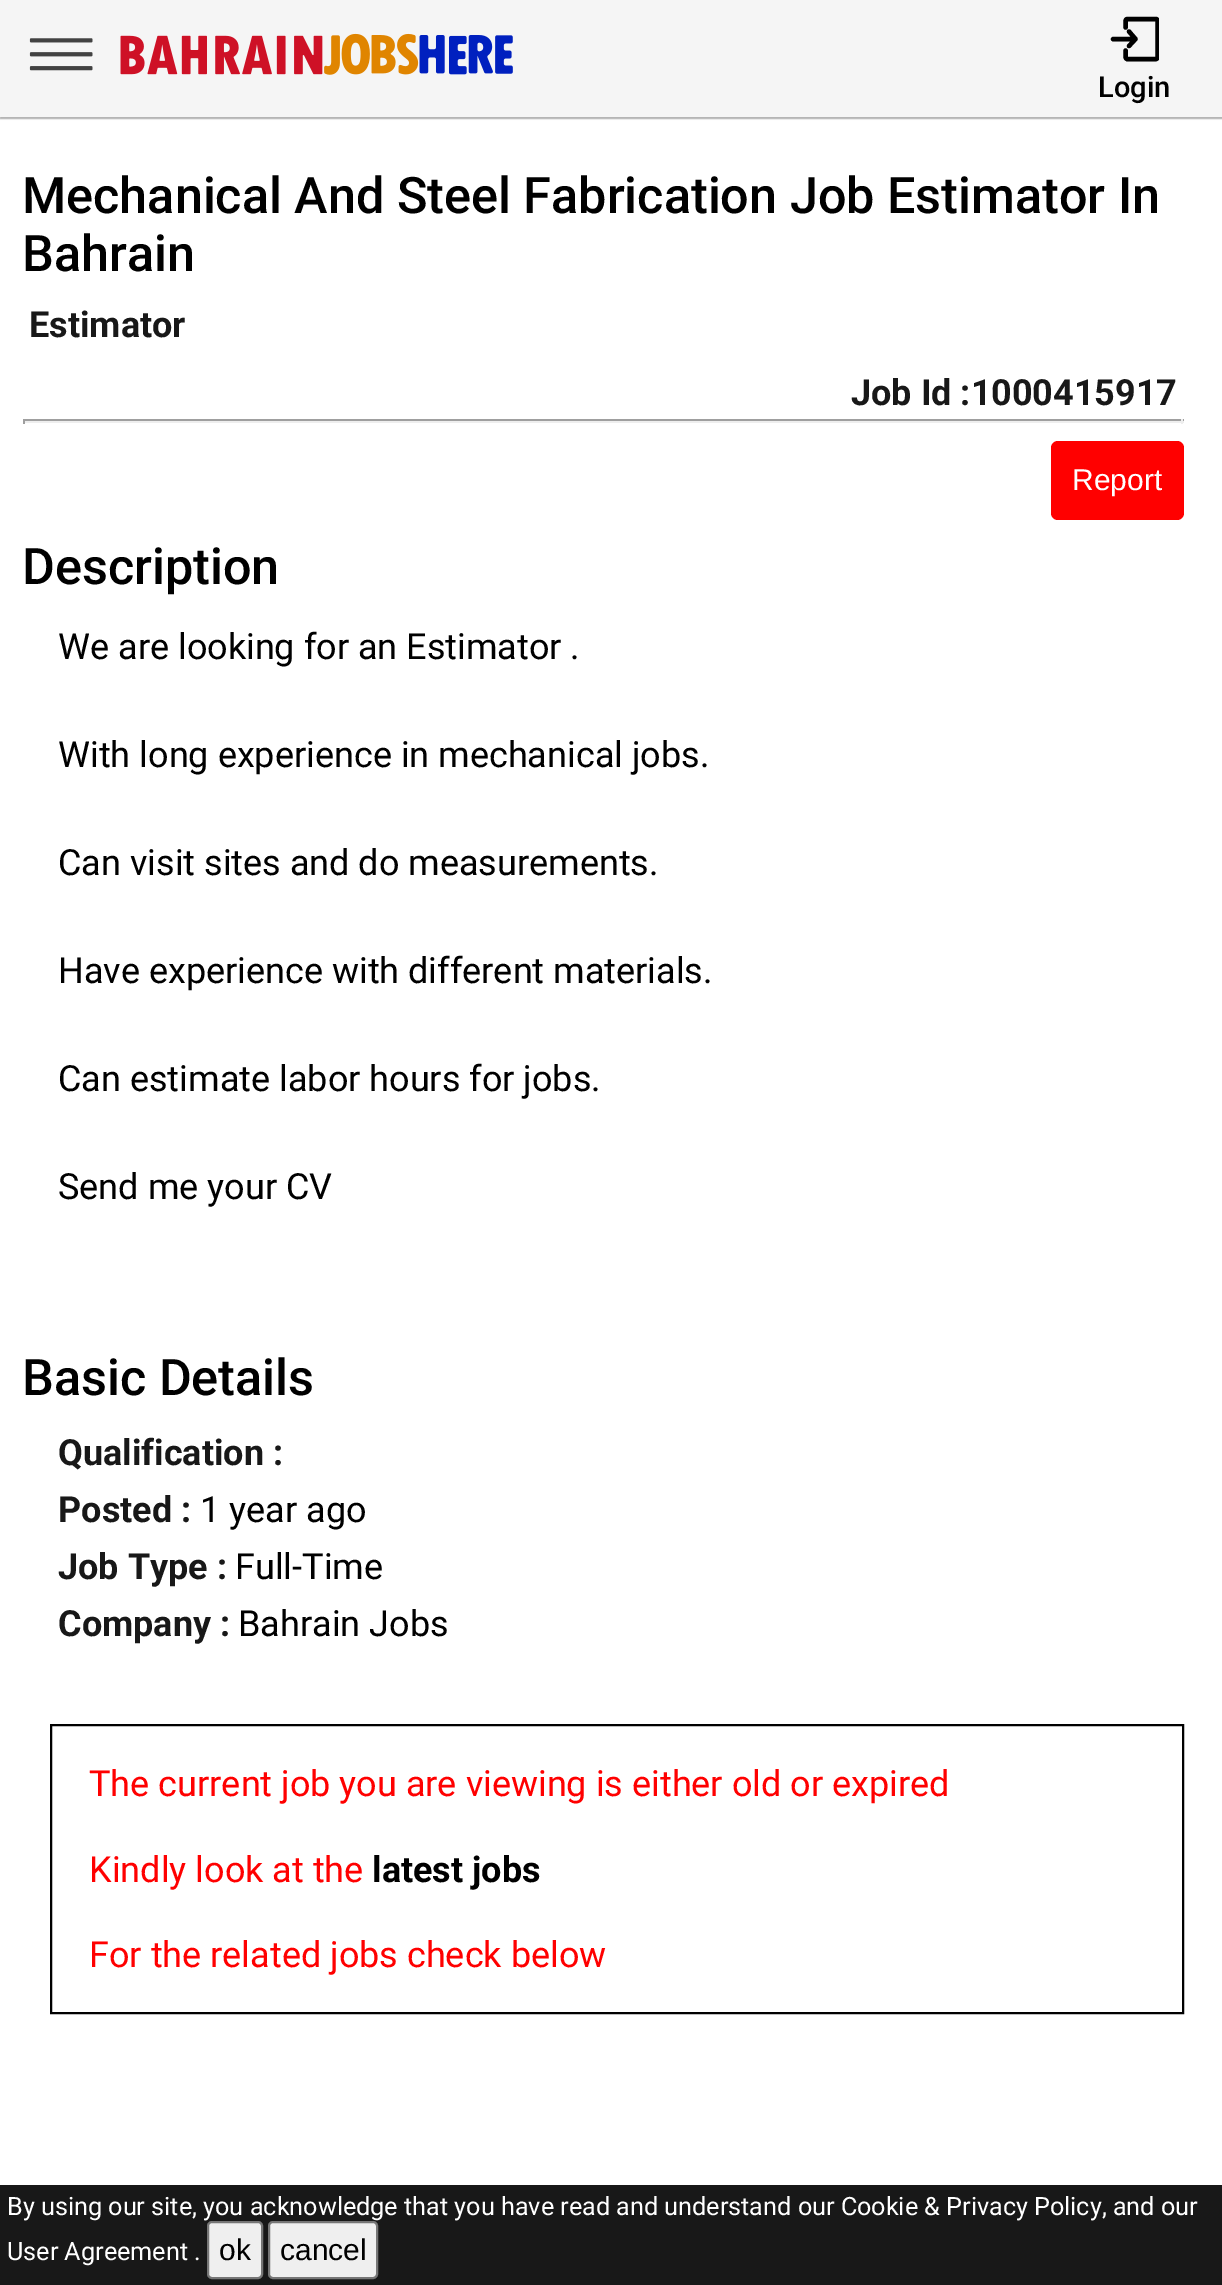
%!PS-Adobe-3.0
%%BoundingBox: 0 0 1222 2285
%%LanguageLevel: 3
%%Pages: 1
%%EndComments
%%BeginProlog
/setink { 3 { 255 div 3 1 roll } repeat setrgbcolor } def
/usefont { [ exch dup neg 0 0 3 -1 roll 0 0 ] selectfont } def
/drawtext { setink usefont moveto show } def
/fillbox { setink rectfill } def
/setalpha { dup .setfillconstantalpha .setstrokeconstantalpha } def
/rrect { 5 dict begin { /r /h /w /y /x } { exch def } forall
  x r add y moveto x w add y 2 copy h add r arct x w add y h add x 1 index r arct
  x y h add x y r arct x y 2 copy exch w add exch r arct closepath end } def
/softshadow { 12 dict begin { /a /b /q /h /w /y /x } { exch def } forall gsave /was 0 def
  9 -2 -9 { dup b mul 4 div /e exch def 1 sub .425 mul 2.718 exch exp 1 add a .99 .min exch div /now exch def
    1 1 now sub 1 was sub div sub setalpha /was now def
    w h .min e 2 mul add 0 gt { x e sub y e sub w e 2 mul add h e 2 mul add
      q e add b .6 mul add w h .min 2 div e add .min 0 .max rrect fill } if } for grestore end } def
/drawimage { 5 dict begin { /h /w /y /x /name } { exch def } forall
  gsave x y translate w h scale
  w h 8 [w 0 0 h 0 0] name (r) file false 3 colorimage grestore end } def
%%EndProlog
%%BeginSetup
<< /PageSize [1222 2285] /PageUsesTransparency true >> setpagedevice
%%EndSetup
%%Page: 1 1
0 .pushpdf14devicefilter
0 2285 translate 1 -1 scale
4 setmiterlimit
0 0 1222 2285 255 255 255 fillbox
0 0 0 setink
0 0 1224 119 0 0.5 0.3 softshadow
0 0 1222 117 245 245 245 fillbox
(assets/img1.rgb) 29 38 64 33 drawimage
(assets/img2.rgb) 120 33 393 42 drawimage
0 0 0 setink
4.4 setlinewidth
1 setlinecap
1 setlinejoin
1113 39 moveto 1135.5 39 lineto 1129 46 lineto 1135.5 39 lineto 1129 31.5 lineto stroke
gsave
1109 14 50 49 rectclip
1125.5 27.5 moveto 1125.5 21.5 lineto 1125.5 20 1126.5 19 1127 19 curveto 1156 19 lineto 1157 19 1157.5 20 1157.5 21.5 curveto 1157.5 56.5 lineto 1157.5 58 1157 59 1156 59 curveto 1127 59 lineto 1126.5 59 1125.5 58 1125.5 56.5 curveto 1125.5 50.5 lineto stroke
grestore
(Login) 1098 97 /Roboto-Medium 29 0 0 0 drawtext
(Mechanical And Steel Fabrication Job Estimator In) 22 213 /Roboto-Medium 50.4 0 0 0 drawtext
(Bahrain) 22 271 /Roboto-Medium 50.4 0 0 0 drawtext
(Estimator) 29 337 /Roboto-Bold 36 24 24 24 drawtext
(Job Id :1000415917) 851 405 /Roboto-Bold 36 24 24 24 drawtext
23 419 1161 2 159 159 159 fillbox
1181 419 2 5 238 238 238 fillbox
23 421 1161 2 238 238 238 fillbox
23 419 2 5 159 159 159 fillbox
255 0 0 setink
1051 441 133 79 7 rrect fill
(Report) 1072 490 /LiberationSans-Regular 30 255 255 255 drawtext
(Description) 22 584 /Roboto-Medium 50.4 0 0 0 drawtext
(We are looking for an Estimator .) 58 659 /Roboto-Regular 36 0 0 0 drawtext
(With long experience in mechanical jobs.) 58 767 /Roboto-Regular 36 0 0 0 drawtext
(Can visit sites and do measurements.) 58 875 /Roboto-Regular 36 0 0 0 drawtext
(Have experience with different materials.) 58 983 /Roboto-Regular 36 0 0 0 drawtext
(Can estimate labor hours for jobs.) 58 1091 /Roboto-Regular 36 0 0 0 drawtext
(Send me your CV) 58 1199 /Roboto-Regular 36 0 0 0 drawtext
(Basic Details) 22 1395 /Roboto-Medium 50.4 0 0 0 drawtext
(Qualification :) 58 1465 /Roboto-Bold 36 24 24 24 drawtext
(Posted :) 58 1522 /Roboto-Bold 36 24 24 24 drawtext
(1 year ago) 200 1522 /Roboto-Regular 36 0 0 0 drawtext
(Job Type :) 58 1579 /Roboto-Bold 36 24 24 24 drawtext
(Full-Time) 235 1579 /Roboto-Regular 36 0 0 0 drawtext
(Company :) 58 1636 /Roboto-Bold 36 24 24 24 drawtext
(Bahrain Jobs) 238 1636 /Roboto-Regular 36 0 0 0 drawtext
2 setlinewidth
0 setlinecap
0 setlinejoin
51 1725 1132 288 rectstroke
(The current job you are viewing is either old or expired) 89 1796 /Roboto-Regular 36 255 0 0 drawtext
(Kindly look at the) 89 1882 /Roboto-Regular 36 255 0 0 drawtext
(latest jobs) 372 1882 /Roboto-Bold 36 0 0 0 drawtext
(For the related jobs check below) 89 1967 /Roboto-Regular 36 255 0 0 drawtext
0 2185 1222 100 24 24 24 fillbox
(By using our site, you acknowledge that you have read and understand our Cookie & Privacy Policy, and our) 7 2215 /Roboto-Regular 25.2 255 255 255 drawtext
(User Agreement .) 7 2260 /Roboto-Regular 25.2 255 255 255 drawtext
239 239 239 setink
208 2222 54 56 4 rrect gsave fill grestore
118 118 118 setink
stroke
(ok) 219 2260 /LiberationSans-Regular 30 0 0 0 drawtext
239 239 239 setink
269 2222 108 56 4 rrect gsave fill grestore
118 118 118 setink
stroke
(cancel) 280 2260 /LiberationSans-Regular 30 0 0 0 drawtext
.poppdf14devicefilter showpage
%%EOF
